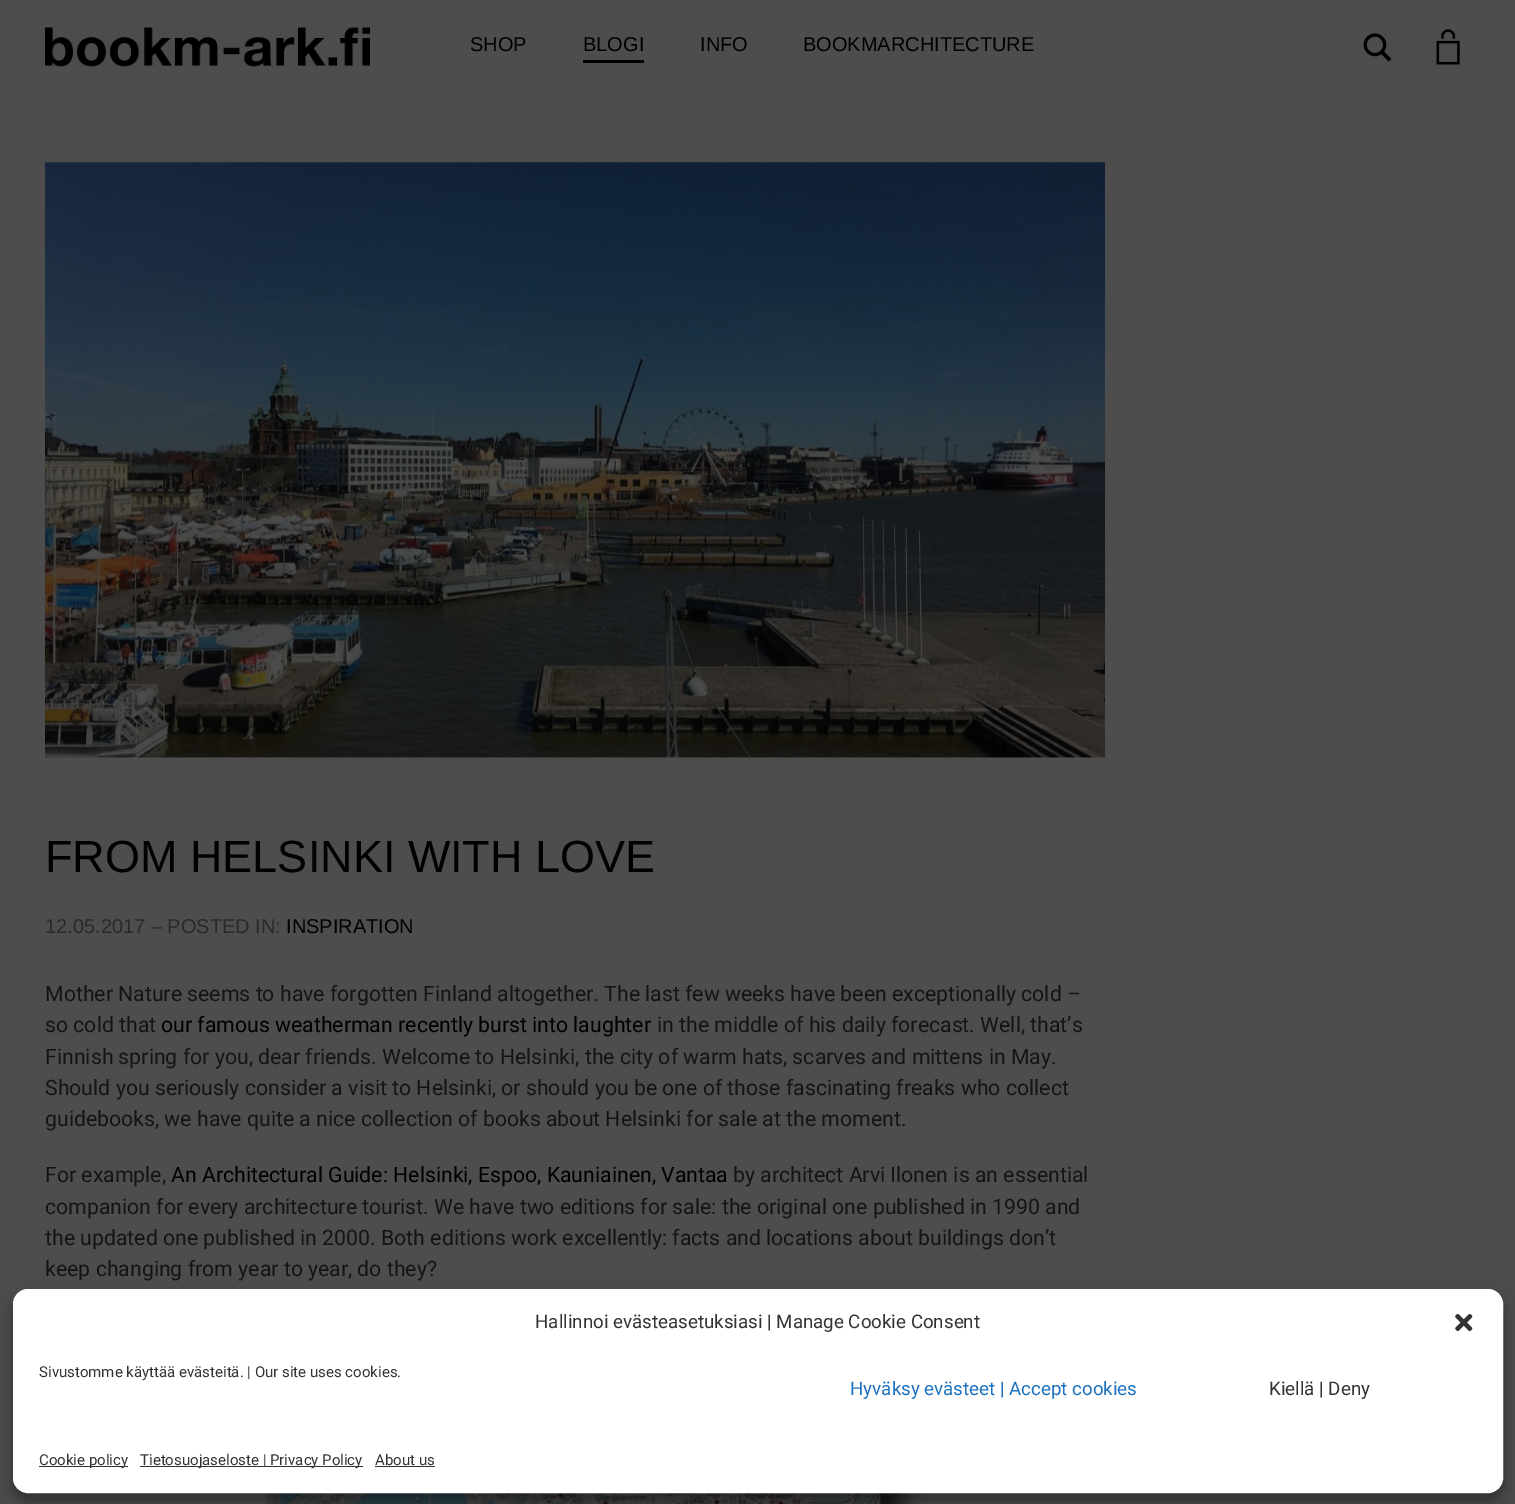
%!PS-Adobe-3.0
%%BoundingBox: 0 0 1515 1504
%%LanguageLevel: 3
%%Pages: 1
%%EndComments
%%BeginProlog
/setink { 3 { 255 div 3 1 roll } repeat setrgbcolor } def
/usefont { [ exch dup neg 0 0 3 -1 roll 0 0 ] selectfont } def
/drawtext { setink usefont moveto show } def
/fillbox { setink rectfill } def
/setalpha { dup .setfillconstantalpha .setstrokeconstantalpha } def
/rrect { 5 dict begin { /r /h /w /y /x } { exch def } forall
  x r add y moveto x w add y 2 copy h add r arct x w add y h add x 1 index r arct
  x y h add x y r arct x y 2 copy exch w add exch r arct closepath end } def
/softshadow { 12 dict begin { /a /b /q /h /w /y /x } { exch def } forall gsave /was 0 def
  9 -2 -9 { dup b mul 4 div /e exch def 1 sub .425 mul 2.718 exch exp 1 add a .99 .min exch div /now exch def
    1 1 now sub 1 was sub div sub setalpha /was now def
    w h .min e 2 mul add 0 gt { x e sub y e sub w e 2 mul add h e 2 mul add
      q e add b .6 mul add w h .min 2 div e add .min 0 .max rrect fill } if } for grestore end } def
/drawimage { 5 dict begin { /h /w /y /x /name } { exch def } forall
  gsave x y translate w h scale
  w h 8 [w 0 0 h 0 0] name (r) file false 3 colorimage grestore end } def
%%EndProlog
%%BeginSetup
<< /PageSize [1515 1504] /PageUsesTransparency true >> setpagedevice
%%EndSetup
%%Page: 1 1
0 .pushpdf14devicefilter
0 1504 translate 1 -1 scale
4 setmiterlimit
0 0 1515 1504 77 77 77 fillbox
0 94 1515 1 73 73 73 fillbox
(assets/img1.rgb) 45 27 325 40 drawimage
(SHOP) 470 51 /Arimo-Regular 20 0 0 0 drawtext
(BLOGI) 583 51 /Arimo-Regular 20 0 0 0 drawtext
583 60 61 3 0 0 0 fillbox
(INFO) 700 51 /Arimo-Regular 20 0 0 0 drawtext
(BOOKMARCHITECTURE) 803 51 /Arimo-Regular 20 0 0 0 drawtext
(assets/img2.rgb) 1363 33 29 29 drawimage
(assets/img3.rgb) 1436 29 24 36 drawimage
(assets/img4.rgb) 45 162 1060 596 drawimage
(FROM HELSINKI WITH LOVE) 45 872 /Arimo-Regular 45 0 0 0 drawtext
(12.05.2017 – POSTED IN:) 45 933 /Arimo-Regular 20 41 41 41 drawtext
(INSPIRATION) 286 933 /Arimo-Regular 20 0 0 0 drawtext
(Mother Nature seems to have forgotten Finland altogether. The last few weeks have been exceptionally cold –) 45 1001 /Roboto-Regular 21.25 20 20 20 drawtext
(so cold that) 45 1032 /Roboto-Regular 21.25 20 20 20 drawtext
(our famous weatherman recently burst into laughter) 161 1032 /Roboto-Regular 21.25 0 0 0 drawtext
(in the middle of his daily forecast. Well, that’s) 657 1032 /Roboto-Regular 21.25 20 20 20 drawtext
(Finnish spring for you, dear friends. Welcome to Helsinki, the city of warm hats, scarves and mittens in May.) 45 1064 /Roboto-Regular 21.25 20 20 20 drawtext
(Should you seriously consider a visit to Helsinki, or should you be one of those fascinating freaks who collect) 45 1095 /Roboto-Regular 21.25 20 20 20 drawtext
(guidebooks, we have quite a nice collection of books about Helsinki for sale at the moment.) 45 1126 /Roboto-Regular 21.25 20 20 20 drawtext
(For example,) 45 1182 /Roboto-Regular 21.25 20 20 20 drawtext
(An Architectural Guide: Helsinki, Espoo, Kauniainen, Vantaa) 171 1182 /Roboto-Regular 21.25 0 0 0 drawtext
(by architect Arvi Ilonen is an essential) 733 1182 /Roboto-Regular 21.25 20 20 20 drawtext
(companion for every architecture tourist. We have two editions for sale: the original one published in 1990 and) 45 1214 /Roboto-Regular 21.25 20 20 20 drawtext
(the updated one published in 2000. Both editions work excellently: facts and locations about buildings don’t) 45 1245 /Roboto-Regular 21.25 20 20 20 drawtext
(keep changing from year to year, do they?) 45 1276 /Roboto-Regular 21.25 20 20 20 drawtext
(assets/img5.rgb) 260 1493 670 11 drawimage
0 0 0 setink
13 1296 1490 204 15 4 0.23 softshadow
13 1301 1490 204 15 12.5 0.19 softshadow
255 255 255 setink
13.5 1289.5 1489 203 14.5 rrect gsave fill grestore
stroke
(Hallinnoi evästeasetuksiasi | Manage Cookie Consent) 535 1328 /Roboto-Regular 18.75 51 51 51 drawtext
(assets/img6.rgb) 1455 1313 18 19 drawimage
(Sivustomme käyttää evästeitä. | Our site uses cookies.) 39 1377 /Roboto-Regular 15 51 51 51 drawtext
(Hyväksy evästeet | Accept cookies) 850 1395 /Roboto-Regular 18.75 30 115 190 drawtext
(Kiellä | Deny) 1269 1395 /Roboto-Regular 18.75 51 51 51 drawtext
39 1466 89 1 51 51 51 fillbox
(Cookie policy) 39 1465 /Roboto-Regular 15 51 51 51 drawtext
140 1466 223 1 51 51 51 fillbox
(Tietosuojaseloste | Privacy Policy) 140 1465 /Roboto-Regular 15 51 51 51 drawtext
(About us) 375 1465 /Roboto-Regular 15 51 51 51 drawtext
375 1466 60 1 51 51 51 fillbox
.poppdf14devicefilter showpage
%%EOF
